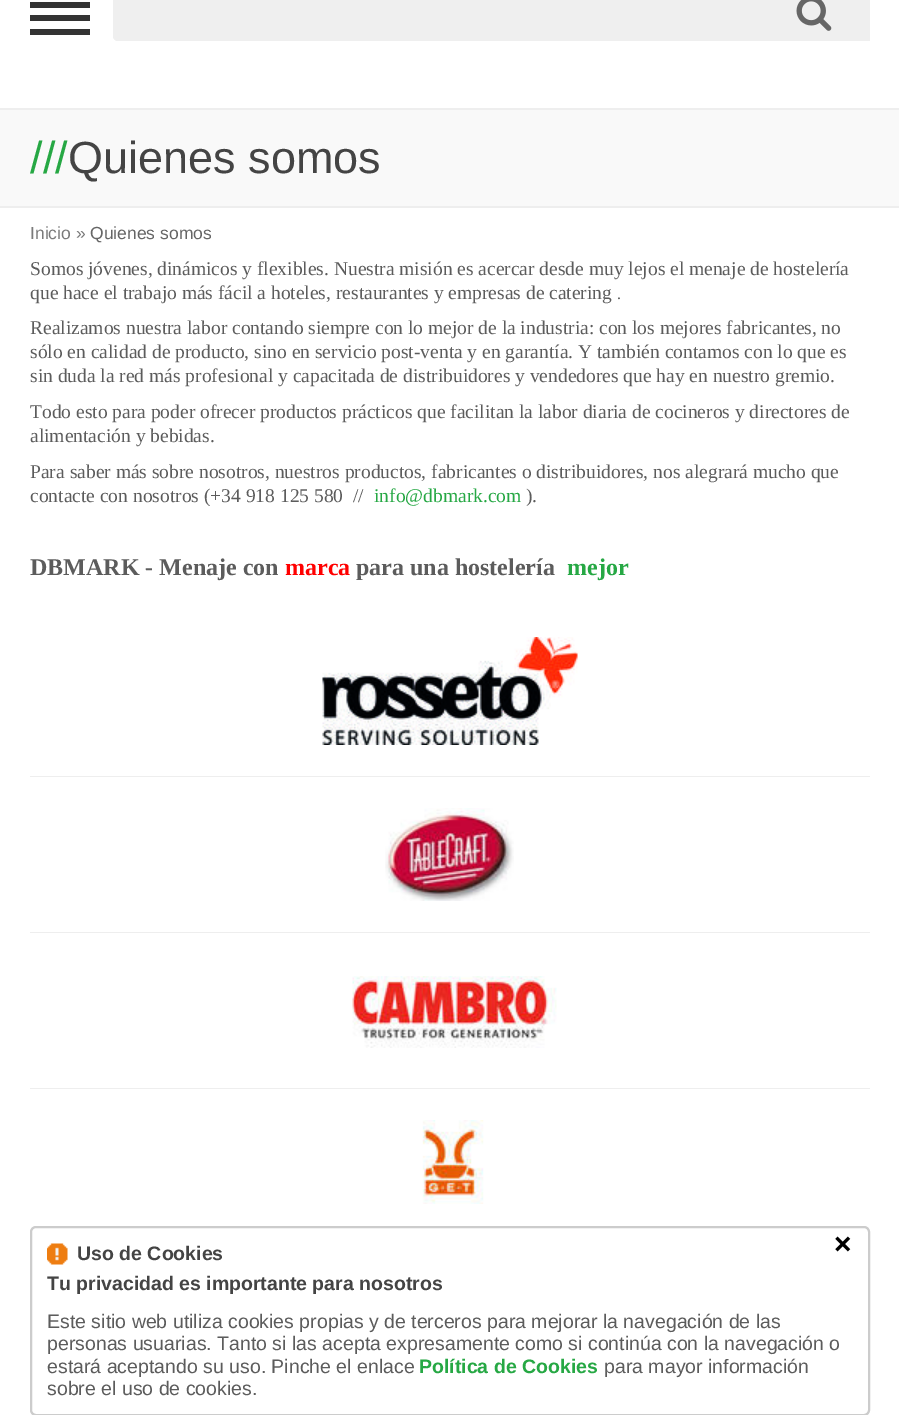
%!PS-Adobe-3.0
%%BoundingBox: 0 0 899 1415
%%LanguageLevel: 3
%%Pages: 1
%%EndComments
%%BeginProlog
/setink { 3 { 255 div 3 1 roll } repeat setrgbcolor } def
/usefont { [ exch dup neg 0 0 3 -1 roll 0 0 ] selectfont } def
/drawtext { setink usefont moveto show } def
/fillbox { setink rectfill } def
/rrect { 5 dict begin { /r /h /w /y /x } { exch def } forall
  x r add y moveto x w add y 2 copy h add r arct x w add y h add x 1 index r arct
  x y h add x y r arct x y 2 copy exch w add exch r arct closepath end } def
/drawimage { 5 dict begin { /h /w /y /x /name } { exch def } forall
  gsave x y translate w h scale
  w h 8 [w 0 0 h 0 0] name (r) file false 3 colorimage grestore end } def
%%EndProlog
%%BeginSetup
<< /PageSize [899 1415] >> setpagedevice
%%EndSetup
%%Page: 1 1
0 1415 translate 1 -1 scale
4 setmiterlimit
0 0 899 1415 255 255 255 fillbox
30 2 60 6 51 51 51 fillbox
30 15 60 6 51 51 51 fillbox
30 29 60 6 51 51 51 fillbox
239 239 239 setink
113 -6 757 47 6 rrect fill
113 -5 586 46 5 rrect fill
865 36 5 5 239 239 239 fillbox
(assets/img1.rgb) 796 0 36 31 drawimage
0 110 899 96 249 249 249 fillbox
0 108 899 2 238 238 238 fillbox
0 206 899 2 238 238 238 fillbox
(///) 30 173 /LiberationSans-Regular 45 38 168 68 drawtext
(Quienes somos) 68 173 /LiberationSans-Regular 45 68 68 68 drawtext
(Inicio ») 30 239 /LiberationSans-Regular 17.5 123 123 123 drawtext
(Quienes somos) 90 239 /LiberationSans-Regular 17.5 102 102 102 drawtext
(Somos jóvenes, dinámicos y flexibles. Nuestra misión es acercar desde muy lejos el menaje de hostelería) 30 275 /LiberationSerif-Regular 19.5 92 92 92 drawtext
(que hace el trabajo más fácil a hoteles, restaurantes y empresas de catering) 30 299 /LiberationSerif-Regular 19.5 92 92 92 drawtext
(.) 617 299 /LiberationSerif-Regular 16 92 92 92 drawtext
(Realizamos nuestra labor contando siempre con lo mejor de la industria: con los mejores fabricantes, no) 30 334 /LiberationSerif-Regular 19.5 92 92 92 drawtext
(sólo en calidad de producto, sino en servicio post-venta y en garantía. Y también contamos con lo que es) 30 358 /LiberationSerif-Regular 19.5 92 92 92 drawtext
(sin duda la red más profesional y capacitada de distribuidores y vendedores que hay en nuestro gremio.) 30 382 /LiberationSerif-Regular 19.5 92 92 92 drawtext
(Todo esto para poder ofrecer productos prácticos que facilitan la labor diaria de cocineros y directores de) 30 418 /LiberationSerif-Regular 19.5 92 92 92 drawtext
(alimentación y bebidas.) 30 442 /LiberationSerif-Regular 19.5 92 92 92 drawtext
(Para saber más sobre nosotros, nuestros productos, fabricantes o distribuidores, nos alegrará mucho que) 30 478 /LiberationSerif-Regular 19.5 92 92 92 drawtext
(contacte con nosotros \(+34 918 125 580  //) 30 502 /LiberationSerif-Regular 19.5 92 92 92 drawtext
(info@dbmark.com) 374 502 /LiberationSerif-Regular 19.5 38 168 68 drawtext
(\).) 526 502 /LiberationSerif-Regular 19.5 92 92 92 drawtext
(DBMARK - Menaje con) 30 575 /LiberationSerif-Bold 24 92 92 92 drawtext
(marca) 285 575 /LiberationSerif-Bold 24 255 0 0 drawtext
(para una hostelería) 356 575 /LiberationSerif-Bold 24 92 92 92 drawtext
(mejor) 567 575 /LiberationSerif-Bold 24 38 168 68 drawtext
(assets/img2.rgb) 322 637 256 108 drawimage
30 776 840 1 238 238 238 fillbox
(assets/img3.rgb) 385 808 129 93 drawimage
30 932 840 1 238 238 238 fillbox
(assets/img4.rgb) 352 976 205 72 drawimage
30 1088 840 1 238 238 238 fillbox
(assets/img5.rgb) 422 1120 62 84 drawimage
204 204 204 setink
2 setlinewidth
31 1227 838 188 5 rrect stroke
(assets/img6.rgb) 47 1243 21 22 drawimage
(Uso de Cookies) 77 1260 /LiberationSans-Bold 19.5 68 68 68 drawtext
(×) 834 1254 /LiberationSans-Bold 30 0 0 0 drawtext
(Tu privacidad es importante para nosotros) 47 1290 /LiberationSans-Bold 19.5 68 68 68 drawtext
(Este sitio web utiliza cookies propias y de terceros para mejorar la navegación de las) 47 1328 /LiberationSans-Regular 19.5 92 92 92 drawtext
(personas usuarias. Tanto si las acepta expresamente como si continúa con la navegación o) 47 1350 /LiberationSans-Regular 19.5 92 92 92 drawtext
(estará aceptando su uso. Pinche el enlace) 47 1373 /LiberationSans-Regular 19.5 92 92 92 drawtext
(Política de Cookies) 419 1373 /LiberationSans-Bold 19.5 38 168 68 drawtext
(para mayor información) 604 1373 /LiberationSans-Regular 19.5 92 92 92 drawtext
(sobre el uso de cookies.) 47 1395 /LiberationSans-Regular 19.5 92 92 92 drawtext
showpage
%%EOF
